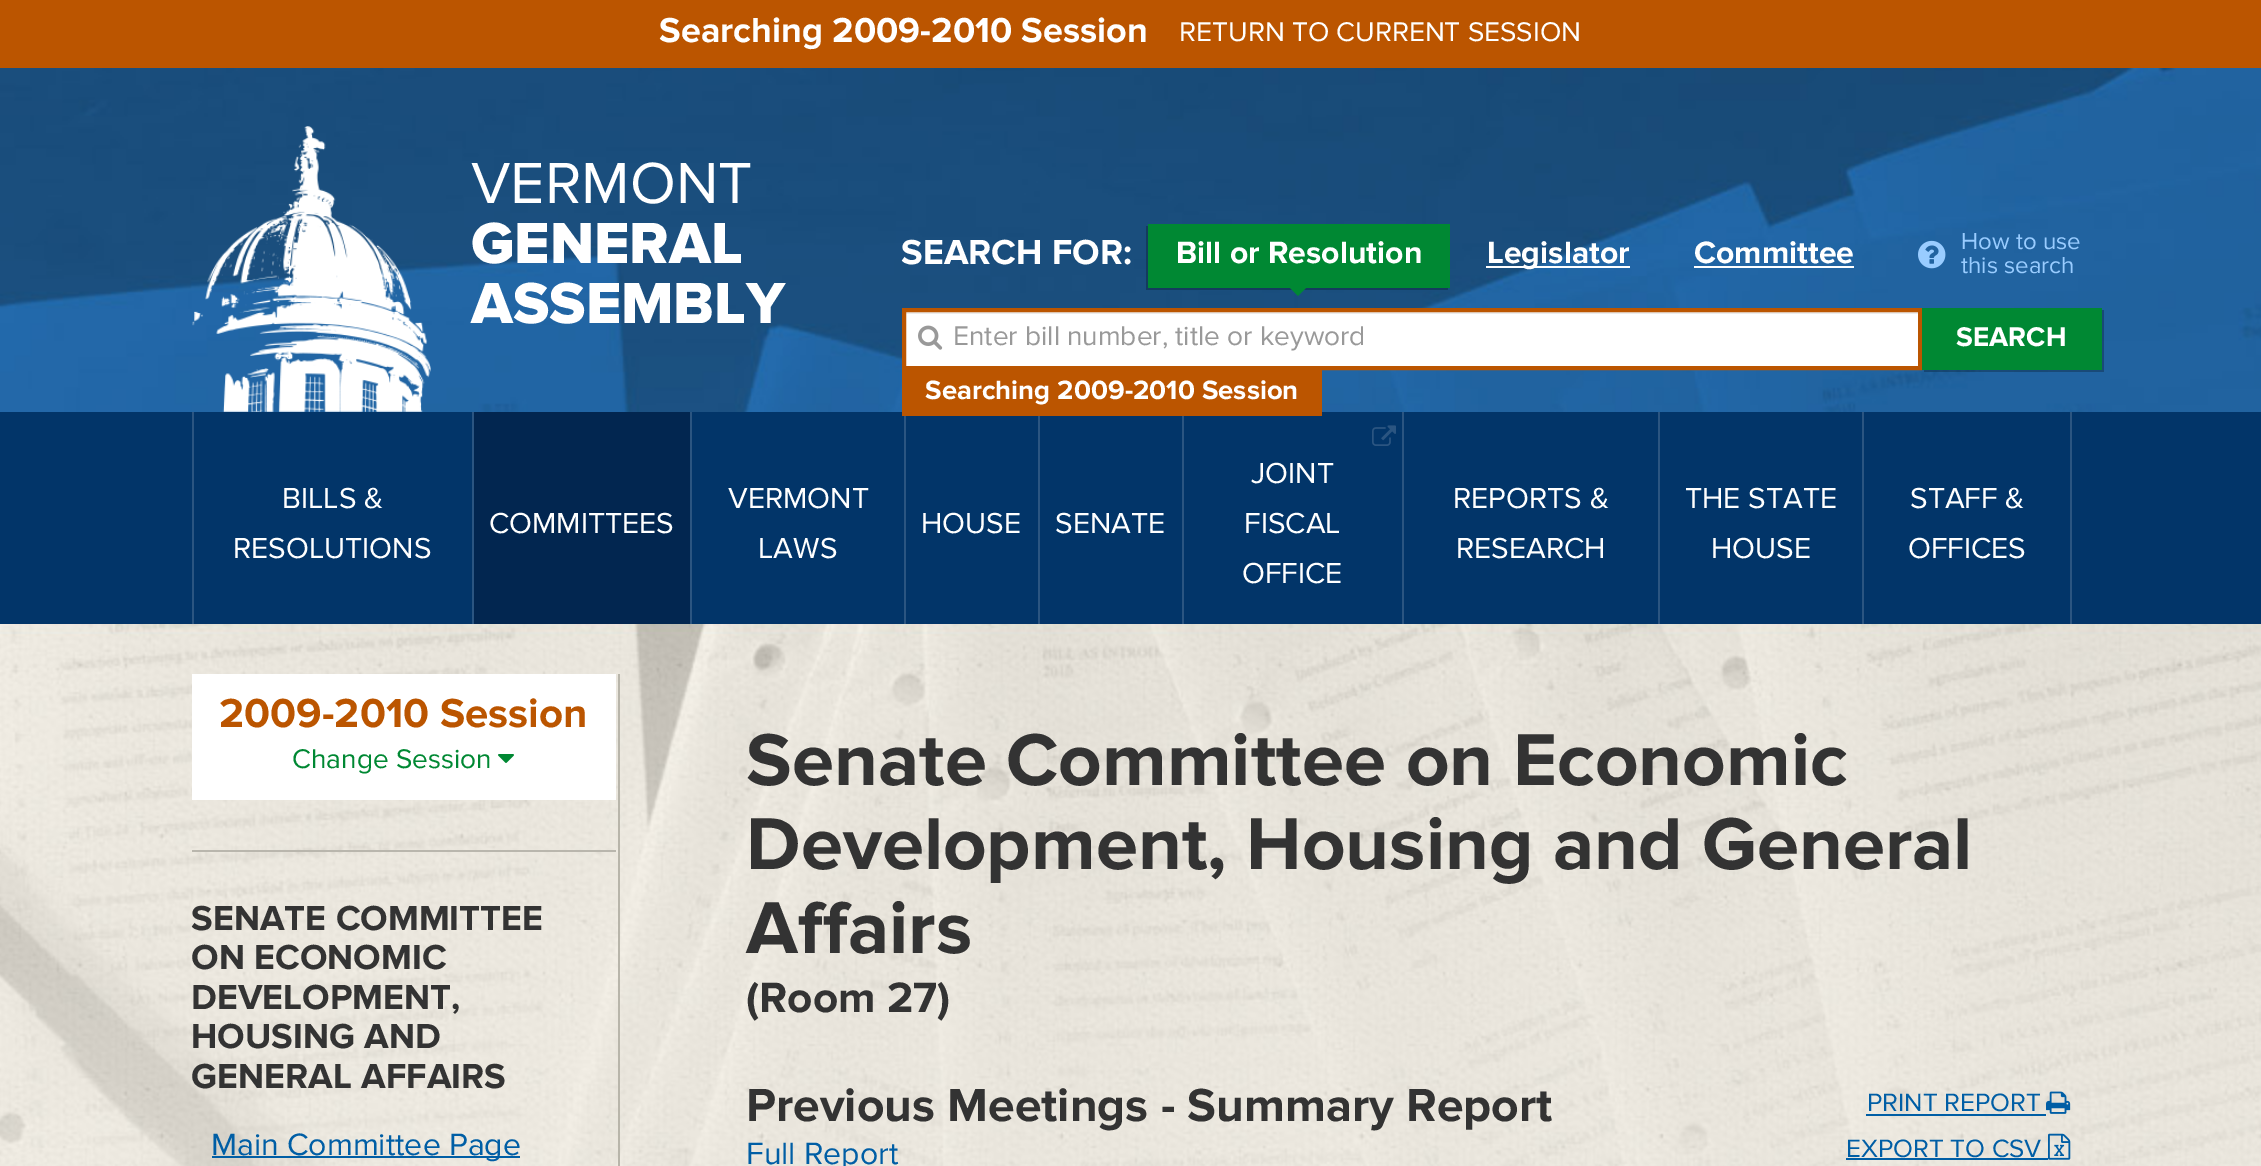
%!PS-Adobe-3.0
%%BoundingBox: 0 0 2261 1166
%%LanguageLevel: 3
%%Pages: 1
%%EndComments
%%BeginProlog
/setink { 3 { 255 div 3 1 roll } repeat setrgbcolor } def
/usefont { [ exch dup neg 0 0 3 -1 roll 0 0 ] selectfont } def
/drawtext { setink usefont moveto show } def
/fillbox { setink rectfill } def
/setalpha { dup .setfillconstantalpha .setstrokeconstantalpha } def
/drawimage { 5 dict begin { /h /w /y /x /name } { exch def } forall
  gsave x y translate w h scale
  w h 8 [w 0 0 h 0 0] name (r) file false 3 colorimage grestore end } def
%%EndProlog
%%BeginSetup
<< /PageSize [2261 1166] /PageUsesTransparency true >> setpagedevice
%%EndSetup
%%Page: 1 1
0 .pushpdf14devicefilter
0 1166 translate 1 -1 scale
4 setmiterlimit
0 0 2261 1166 187 85 0 fillbox
(Searching 2009-2010 Session) 659 42 /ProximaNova-Bold 36 255 255 255 drawtext
(RETURN TO CURRENT SESSION) 1179 41 /ProximaNova-Regular 28 255 255 255 drawtext
(assets/img1.rgb) 0 68 2261 344 drawimage
(assets/img2.rgb) 192 126 239 286 drawimage
(VERMONT) 471 203 /ProximaNova-Regular 60 255 255 255 drawtext
(GENERAL) 471 263 /ProximaNova-ExtraBold 60 255 255 255 drawtext
(ASSEMBLY) 471 323 /ProximaNova-ExtraBold 60 255 255 255 drawtext
(SEARCH FOR:) 901 264 /ProximaNova-Bold 36 255 255 255 drawtext
20 59 94 setink
1146 226 moveto 1146 290 lineto 1448 290 lineto 1448 288 lineto 1148 288 lineto 1148 226 lineto closepath fill
1148 224 302 64 0 136 51 fillbox
(Bill or Resolution) 1176 263 /ProximaNova-Bold 32 255 255 255 drawtext
0 136 51 setink
1288 286 moveto 1308 286 lineto 1298 296 lineto closepath fill
1486 266 144 2 255 255 255 fillbox
(Legislator) 1487 263 /ProximaNova-Bold 32 255 255 255 drawtext
(Committee) 1694 263 /ProximaNova-Bold 32 255 255 255 drawtext
1694 266 160 2 255 255 255 fillbox
(assets/img3.rgb) 1918 240 28 29 drawimage
(How to use) 1961 249 /ProximaNova-Regular 24 153 204 255 drawtext
(this search) 1961 273 /ProximaNova-Regular 24 153 204 255 drawtext
906 314 1012 52 255 255 255 fillbox
906 312 1012 2 236 236 236 fillbox
187 85 0 setink
4 setlinewidth
904 310 1016 58 rectstroke
(assets/img4.rgb) 918 325 25 25 drawimage
(Enter bill number, title or keyword) 953 345 /ProximaNova-Regular 28 153 153 153 drawtext
0.25 setalpha
0 0 0 setink
1924 370 moveto 1924 372 lineto 2104 372 lineto 2104 310 lineto 2102 310 lineto 2102 370 lineto closepath fill
1 setalpha
1922 308 180 62 0 136 51 fillbox
(SEARCH) 1956 346 /ProximaNova-Bold 28 255 255 255 drawtext
0 412 2261 212 2 53 105 fillbox
904 412 2 212 43 85 129 fillbox
1038 412 2 212 43 85 129 fillbox
1182 412 2 212 43 85 129 fillbox
902 370 420 46 187 85 0 fillbox
(Searching 2009-2010 Session) 925 399 /ProximaNova-Bold 27.5 255 255 255 drawtext
2070 412 2 212 43 85 129 fillbox
192 412 2 212 43 85 129 fillbox
(BILLS &) 282 508 /ProximaNova-Regular 30 255 255 255 drawtext
(RESOLUTIONS) 233 558 /ProximaNova-Regular 30 255 255 255 drawtext
474 412 216 212 2 38 80 fillbox
472 412 2 212 43 85 129 fillbox
(COMMITTEES) 489 533 /ProximaNova-Regular 30 255 255 255 drawtext
690 412 2 212 43 85 129 fillbox
(VERMONT) 728 508 /ProximaNova-Regular 30 255 255 255 drawtext
(LAWS) 758 558 /ProximaNova-Regular 30 255 255 255 drawtext
(HOUSE) 921 533 /ProximaNova-Regular 30 255 255 255 drawtext
(SENATE) 1055 533 /ProximaNova-Regular 30 255 255 255 drawtext
(assets/img5.rgb) 1372 425 24 21 drawimage
(JOINT) 1251 483 /ProximaNova-Regular 30 255 255 255 drawtext
(FISCAL) 1244 533 /ProximaNova-Regular 30 255 255 255 drawtext
(OFFICE) 1242 583 /ProximaNova-Regular 30 255 255 255 drawtext
1402 412 2 212 43 85 129 fillbox
(REPORTS &) 1453 508 /ProximaNova-Regular 30 255 255 255 drawtext
(RESEARCH) 1456 558 /ProximaNova-Regular 30 255 255 255 drawtext
1658 412 2 212 43 85 129 fillbox
(THE STATE) 1685 508 /ProximaNova-Regular 30 255 255 255 drawtext
(HOUSE) 1711 558 /ProximaNova-Regular 30 255 255 255 drawtext
1862 412 2 212 43 85 129 fillbox
(STAFF &) 1910 508 /ProximaNova-Regular 30 255 255 255 drawtext
(OFFICES) 1908 558 /ProximaNova-Regular 30 255 255 255 drawtext
(assets/img6.rgb) 0 624 2261 542 drawimage
618 674 2 492 184 181 170 fillbox
192 674 424 126 255 255 255 fillbox
(2009-2010 Session) 219 727 /ProximaNova-Bold 42 187 85 0 drawtext
(Change Session) 292 768 /ProximaNova-Regular 28 0 136 51 drawtext
(assets/img7.rgb) 498 754 16 9 drawimage
192 850 424 2 185 182 173 fillbox
(SENATE COMMITTEE) 191 930 /ProximaNova-Bold 36 51 51 51 drawtext
(ON ECONOMIC) 191 969 /ProximaNova-Bold 36 51 51 51 drawtext
(DEVELOPMENT,) 191 1009 /ProximaNova-Bold 36 51 51 51 drawtext
(HOUSING AND) 191 1048 /ProximaNova-Bold 36 51 51 51 drawtext
(GENERAL AFFAIRS) 191 1088 /ProximaNova-Bold 36 51 51 51 drawtext
212 1156 308 2 0 94 165 fillbox
(Main Committee Page) 211 1155 /ProximaNova-Regular 32 0 94 165 drawtext
(Senate Committee on Economic) 746 785 /ProximaNova-Bold 76 51 51 51 drawtext
(Development, Housing and General) 746 869 /ProximaNova-Bold 76 51 51 51 drawtext
(Affairs) 746 953 /ProximaNova-Bold 76 51 51 51 drawtext
(\(Room 27\)) 746 1012 /ProximaNova-Bold 44 51 51 51 drawtext
(Previous Meetings - Summary Report) 746 1121 /ProximaNova-Bold 48 51 51 51 drawtext
(Full Report) 746 1164 /ProximaNova-Regular 32 0 94 165 drawtext
(PRINT REPORT) 1867 1111 /ProximaNova-Regular 26 0 94 165 drawtext
1866 1114 180 2 0 94 165 fillbox
(assets/img8.rgb) 2046 1091 25 23 drawimage
(EXPORT TO CSV) 1846 1157 /ProximaNova-Regular 26 0 94 165 drawtext
1846 1158 202 2 0 94 165 fillbox
(assets/img9.rgb) 2048 1133 23 27 drawimage
.poppdf14devicefilter showpage
%%EOF
